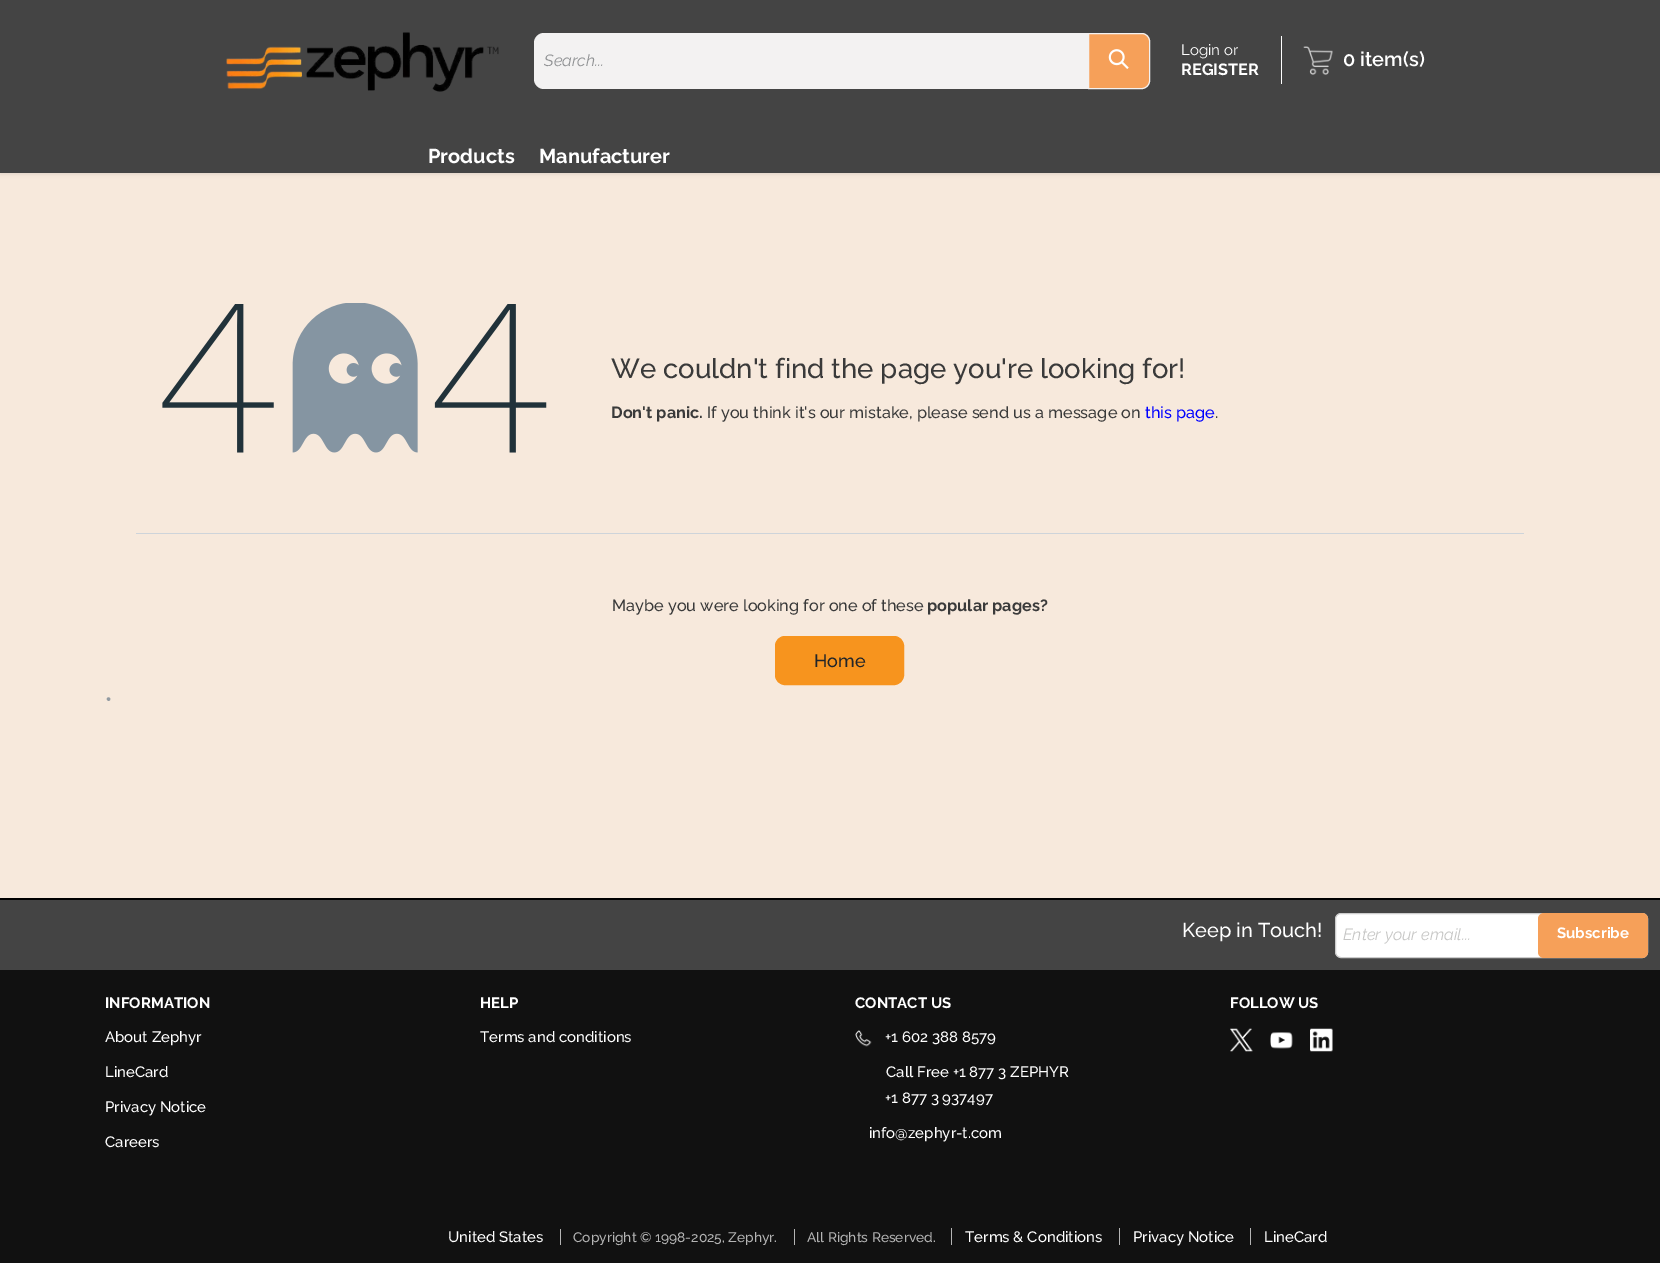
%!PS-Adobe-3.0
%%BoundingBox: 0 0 1660 1263
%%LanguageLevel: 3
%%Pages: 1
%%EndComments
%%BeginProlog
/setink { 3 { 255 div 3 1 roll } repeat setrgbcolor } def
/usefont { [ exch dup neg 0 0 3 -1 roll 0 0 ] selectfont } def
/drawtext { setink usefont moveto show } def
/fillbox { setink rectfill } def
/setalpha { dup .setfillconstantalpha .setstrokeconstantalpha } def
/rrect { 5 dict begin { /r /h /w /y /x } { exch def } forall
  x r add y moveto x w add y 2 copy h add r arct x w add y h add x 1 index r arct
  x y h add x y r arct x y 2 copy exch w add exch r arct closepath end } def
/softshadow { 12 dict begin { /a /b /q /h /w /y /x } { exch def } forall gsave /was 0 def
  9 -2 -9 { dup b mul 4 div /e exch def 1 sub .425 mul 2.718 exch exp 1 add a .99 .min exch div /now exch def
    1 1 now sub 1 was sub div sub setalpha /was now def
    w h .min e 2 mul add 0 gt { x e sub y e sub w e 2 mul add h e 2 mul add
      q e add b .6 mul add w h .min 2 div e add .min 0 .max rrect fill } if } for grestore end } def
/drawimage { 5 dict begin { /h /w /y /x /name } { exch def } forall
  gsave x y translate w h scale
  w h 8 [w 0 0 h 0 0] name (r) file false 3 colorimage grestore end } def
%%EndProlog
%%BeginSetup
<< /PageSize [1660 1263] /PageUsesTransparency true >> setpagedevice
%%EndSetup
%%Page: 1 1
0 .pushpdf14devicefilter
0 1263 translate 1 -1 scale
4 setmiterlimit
0 0 1660 1263 247 233 220 fillbox
0 0 0 setink
0 1 1660 173 0 2 0.1 softshadow
0 0 1660 173 68 68 68 fillbox
(assets/img1.rgb) 226 32 273 60 drawimage
243 242 242 setink
544 33 moveto 1089 33 lineto 1089 89 lineto 544 89 lineto 538.5 89 534 84.5 534 79 curveto 534 43 lineto 534 37.5 538.5 33 544 33 curveto closepath fill
(Search...) 544 66 /Raleway-Italic 16.25 144 146 148 drawtext
246 160 89 setink
1088.5 33.5 moveto 1142 33.5 lineto 1146 33.5 1149.5 37 1149.5 41 curveto 1149.5 81 lineto 1149.5 85 1146 88.5 1142 88.5 curveto 1088.5 88.5 lineto closepath gsave fill grestore
243 242 242 setink
stroke
(assets/img2.rgb) 1108 49 21 20 drawimage
(Login or) 1181 55 /Raleway-Regular 15 255 255 255 drawtext
(REGISTER) 1181 75 /Raleway-Bold 16.25 255 255 255 drawtext
1281 36 1 48 255 255 255 fillbox
(assets/img3.rgb) 1303 46 30 29 drawimage
(0 item\(s\)) 1343 66 /Raleway-SemiBold 20 255 255 255 drawtext
(Products) 428 163 /Raleway-Bold 20 255 255 255 drawtext
(Manufacturer) 539 163 /Raleway-Bold 20 255 255 255 drawtext
(assets/img4.rgb) 162 303 385 150 drawimage
(We couldn't find the page you're looking for!) 611 378 /Raleway-Medium 27.5 58 58 58 drawtext
(Don't panic.) 611 418 /Raleway-Bold 16.25 58 58 58 drawtext
(If you think it's our mistake, please send us a message on) 707 418 /Raleway-Medium 16.25 58 58 58 drawtext
(this page) 1145 418 /Raleway-Medium 16.25 0 0 255 drawtext
(.) 1215 418 /Raleway-Medium 16.25 58 58 58 drawtext
136 533 1388 1 206 212 218 fillbox
(Maybe you were looking for one of these) 612 611 /Raleway-Medium 16.25 58 58 58 drawtext
(popular pages?) 927 611 /Raleway-Bold 16.25 58 58 58 drawtext
247 148 30 setink
775.5 636.5 128 48 9.5 rrect gsave fill grestore
stroke
(Home) 814 667 /Raleway-Medium 18 33 37 41 drawtext
(•) 105 706 /Raleway-Medium 20 146 154 161 drawtext
0 970 1660 293 17 17 17 fillbox
0 898 1660 2 0 0 0 fillbox
0 900 1660 70 68 68 68 fillbox
(Keep in Touch!) 1182 937 /Raleway-Medium 20 255 255 255 drawtext
1335.5 913.5 312 44 5.5 rrect gsave fill grestore
204 204 204 setink
stroke
(Enter your email...) 1343 940 /Raleway-Italic 16.25 198 198 197 drawtext
246 160 89 setink
1538 913 110 45 6 rrect fill
(Subscribe) 1557 938 /Raleway-Bold 15 255 255 255 drawtext
(INFORMATION) 105 1008 /Raleway-Bold 15 255 255 255 drawtext
(About Zephyr) 105 1042 /Raleway-Medium 15 255 255 255 drawtext
(LineCard) 105 1077 /Raleway-Medium 15 255 255 255 drawtext
(Privacy Notice) 105 1112 /Raleway-Medium 15 255 255 255 drawtext
(Careers) 105 1147 /Raleway-Medium 15 255 255 255 drawtext
(HELP) 480 1008 /Raleway-Bold 15 255 255 255 drawtext
(Terms and conditions) 480 1042 /Raleway-Medium 15 255 255 255 drawtext
(CONTACT US) 855 1008 /Raleway-Bold 15 255 255 255 drawtext
(assets/img5.rgb) 855 1030 17 17 drawimage
(+1 602 388 8579) 885 1042 /Raleway-Medium 15 255 255 255 drawtext
(Call Free +1 877 3 ZEPHYR) 886 1077 /Raleway-Medium 15 255 255 255 drawtext
(+1 877 3 937497) 885 1103 /Raleway-Medium 15 255 255 255 drawtext
(info@zephyr-t.com) 869 1138 /Raleway-Medium 15 255 255 255 drawtext
(FOLLOW US) 1230 1008 /Raleway-Bold 15 255 255 255 drawtext
(assets/img6.rgb) 1230 1028 23 24 drawimage
(assets/img7.rgb) 1270 1032 23 17 drawimage
(assets/img8.rgb) 1310 1028 23 24 drawimage
(United States) 448 1242 /Raleway-Medium 15 255 255 255 drawtext
(Copyright © 1998-2025, Zephyr.) 573 1242 /Raleway-Medium 13.75 180 180 180 drawtext
560 1229 1 16 180 180 180 fillbox
(All Rights Reserved.) 807 1242 /Raleway-Medium 13.75 180 180 180 drawtext
794 1229 1 16 180 180 180 fillbox
(Terms & Conditions) 965 1242 /Raleway-Medium 15 255 255 255 drawtext
951 1228 1 17 180 180 180 fillbox
(Privacy Notice) 1133 1242 /Raleway-Medium 15 255 255 255 drawtext
1119 1228 1 17 180 180 180 fillbox
(LineCard) 1264 1242 /Raleway-Medium 15 255 255 255 drawtext
1250 1228 1 17 180 180 180 fillbox
.poppdf14devicefilter showpage
%%EOF
